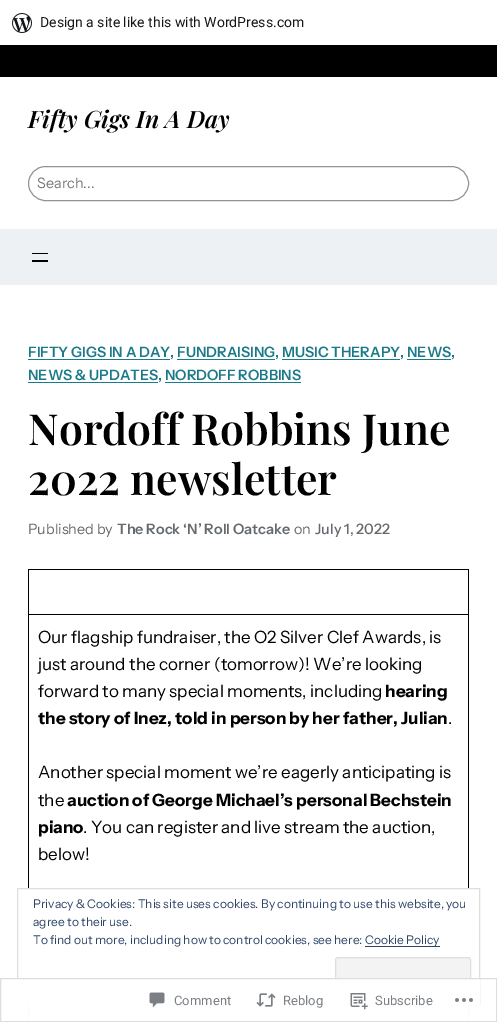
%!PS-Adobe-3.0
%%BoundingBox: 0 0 497 1022
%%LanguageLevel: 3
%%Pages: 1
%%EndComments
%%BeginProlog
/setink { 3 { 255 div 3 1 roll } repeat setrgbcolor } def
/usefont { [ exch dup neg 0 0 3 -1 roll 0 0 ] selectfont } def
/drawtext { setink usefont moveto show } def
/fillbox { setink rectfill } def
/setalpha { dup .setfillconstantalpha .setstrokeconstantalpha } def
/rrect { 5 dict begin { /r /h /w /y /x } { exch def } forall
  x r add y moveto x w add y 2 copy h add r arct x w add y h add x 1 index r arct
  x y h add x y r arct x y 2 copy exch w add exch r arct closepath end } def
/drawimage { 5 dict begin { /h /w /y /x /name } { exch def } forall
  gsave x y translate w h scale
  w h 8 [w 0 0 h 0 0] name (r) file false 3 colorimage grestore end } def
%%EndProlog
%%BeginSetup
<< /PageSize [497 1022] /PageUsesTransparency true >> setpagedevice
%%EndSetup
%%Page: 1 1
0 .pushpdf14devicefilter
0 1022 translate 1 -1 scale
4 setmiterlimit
0 0 497 1022 255 255 255 fillbox
(assets/img1.rgb) 12 13 20 20 drawimage
(Design a site like this with WordPress.com) 40 27 /Roboto-Regular 14 23 23 23 drawtext
0 45 497 32 0 0 0 fillbox
(Fifty Gigs In A Day) 28 128 /PlayfairDisplay-SemiBoldItalic 24 0 0 0 drawtext
148 148 148 setink
28.5 166.5 440 34 17 rrect stroke
(Search...) 37 188 /InstrumentSans-Regular 14.4 117 117 117 drawtext
0 229 497 56 237 241 244 fillbox
32 253 16 1 0 0 0 fillbox
32 260 16 2 0 0 0 fillbox
28 359 142 1 26 122 137 fillbox
(FIFTY GIGS IN A DAY, FUNDRAISING, MUSIC THERAPY, NEWS,) 28 357 /InstrumentSans-SemiBold 14.4 26 122 137 drawtext
177 359 98 1 26 122 137 fillbox
282 359 118 1 26 122 137 fillbox
407 359 44 1 26 122 137 fillbox
28 382 130 1 26 122 137 fillbox
(NEWS & UPDATES, NORDOFF ROBBINS) 28 380 /InstrumentSans-SemiBold 14.4 26 122 137 drawtext
165 382 136 1 26 122 137 fillbox
(Nordoff Robbins June) 28 445 /PlayfairDisplay-SemiBold 42.75 0 0 0 drawtext
(2022 newsletter) 28 495 /PlayfairDisplay-SemiBold 42.75 0 0 0 drawtext
(Published by) 28 534 /InstrumentSans-Regular 14.4 100 105 109 drawtext
(The Rock ‘N’ Roll Oatcake) 117 534 /InstrumentSans-SemiBold 14.4 100 105 109 drawtext
(on) 294 534 /InstrumentSans-Regular 14.4 100 105 109 drawtext
(July 1, 2022) 315 534 /InstrumentSans-Medium 14.4 100 105 109 drawtext
28 569 441 1 0 0 0 fillbox
28 614 441 1 0 0 0 fillbox
468 614 1 408 0 0 0 fillbox
468 569 1 46 0 0 0 fillbox
28 614 1 408 0 0 0 fillbox
28 569 1 46 0 0 0 fillbox
(Our flagship fundraiser, the O2 Silver Clef Awards, is) 38 643 /InstrumentSans-Regular 17 0 0 0 drawtext
(just around the corner \(tomorrow\)! We’re looking) 38 670 /InstrumentSans-Regular 17 0 0 0 drawtext
(forward to many special moments, including) 38 697 /InstrumentSans-Regular 17 0 0 0 drawtext
(hearing) 385 697 /InstrumentSans-Bold 17 0 0 0 drawtext
(the story of Inez, told in person by her father, Julian) 38 724 /InstrumentSans-Bold 17 0 0 0 drawtext
(.) 448 724 /InstrumentSans-Regular 17 0 0 0 drawtext
(Another special moment we’re eagerly anticipating is) 38 778 /InstrumentSans-Regular 17 0 0 0 drawtext
(the) 38 806 /InstrumentSans-Regular 17 0 0 0 drawtext
(auction of George Michael’s personal Bechstein) 67 806 /InstrumentSans-Bold 17 0 0 0 drawtext
(piano) 38 833 /InstrumentSans-Bold 17 0 0 0 drawtext
(. You can register and live stream the auction,) 83 833 /InstrumentSans-Regular 17 0 0 0 drawtext
(below!) 38 860 /InstrumentSans-Regular 17 0 0 0 drawtext
28 889 441 115 255 255 255 fillbox
222 222 222 setink
17.5 888.5 462 116 rectstroke
(Privacy & Cookies: This site uses cookies. By continuing to use this website, you) 33 908 /InstrumentSans-Regular 12 46 68 103 drawtext
(agree to their use.) 33 926 /InstrumentSans-Regular 12 46 68 103 drawtext
(To find out more, including how to control cookies, see here:) 33 944 /InstrumentSans-Regular 12 46 68 103 drawtext
365 946 75 1 46 68 103 fillbox
(Cookie Policy) 365 944 /InstrumentSans-Regular 12 46 68 103 drawtext
243 243 243 setink
335.5 957.5 135 38 2.5 rrect gsave fill grestore
222 222 222 setink
stroke
0.98 setalpha
17 978 463 44 255 255 255 fillbox
220 220 222 setink
0.5 978.5 496 43 rectstroke
1 setalpha
(assets/img2.rgb) 149 992 16 16 drawimage
(Comment) 174 1005 /Roboto-Regular 13 123 127 132 drawtext
(assets/img3.rgb) 256 993 20 14 drawimage
(Reblog) 283 1005 /Roboto-Regular 13 123 127 132 drawtext
(assets/img4.rgb) 350 993 18 17 drawimage
(Subscribe) 375 1005 /Roboto-Regular 13 123 127 132 drawtext
(assets/img5.rgb) 455 998 18 4 drawimage
.poppdf14devicefilter showpage
%%EOF
